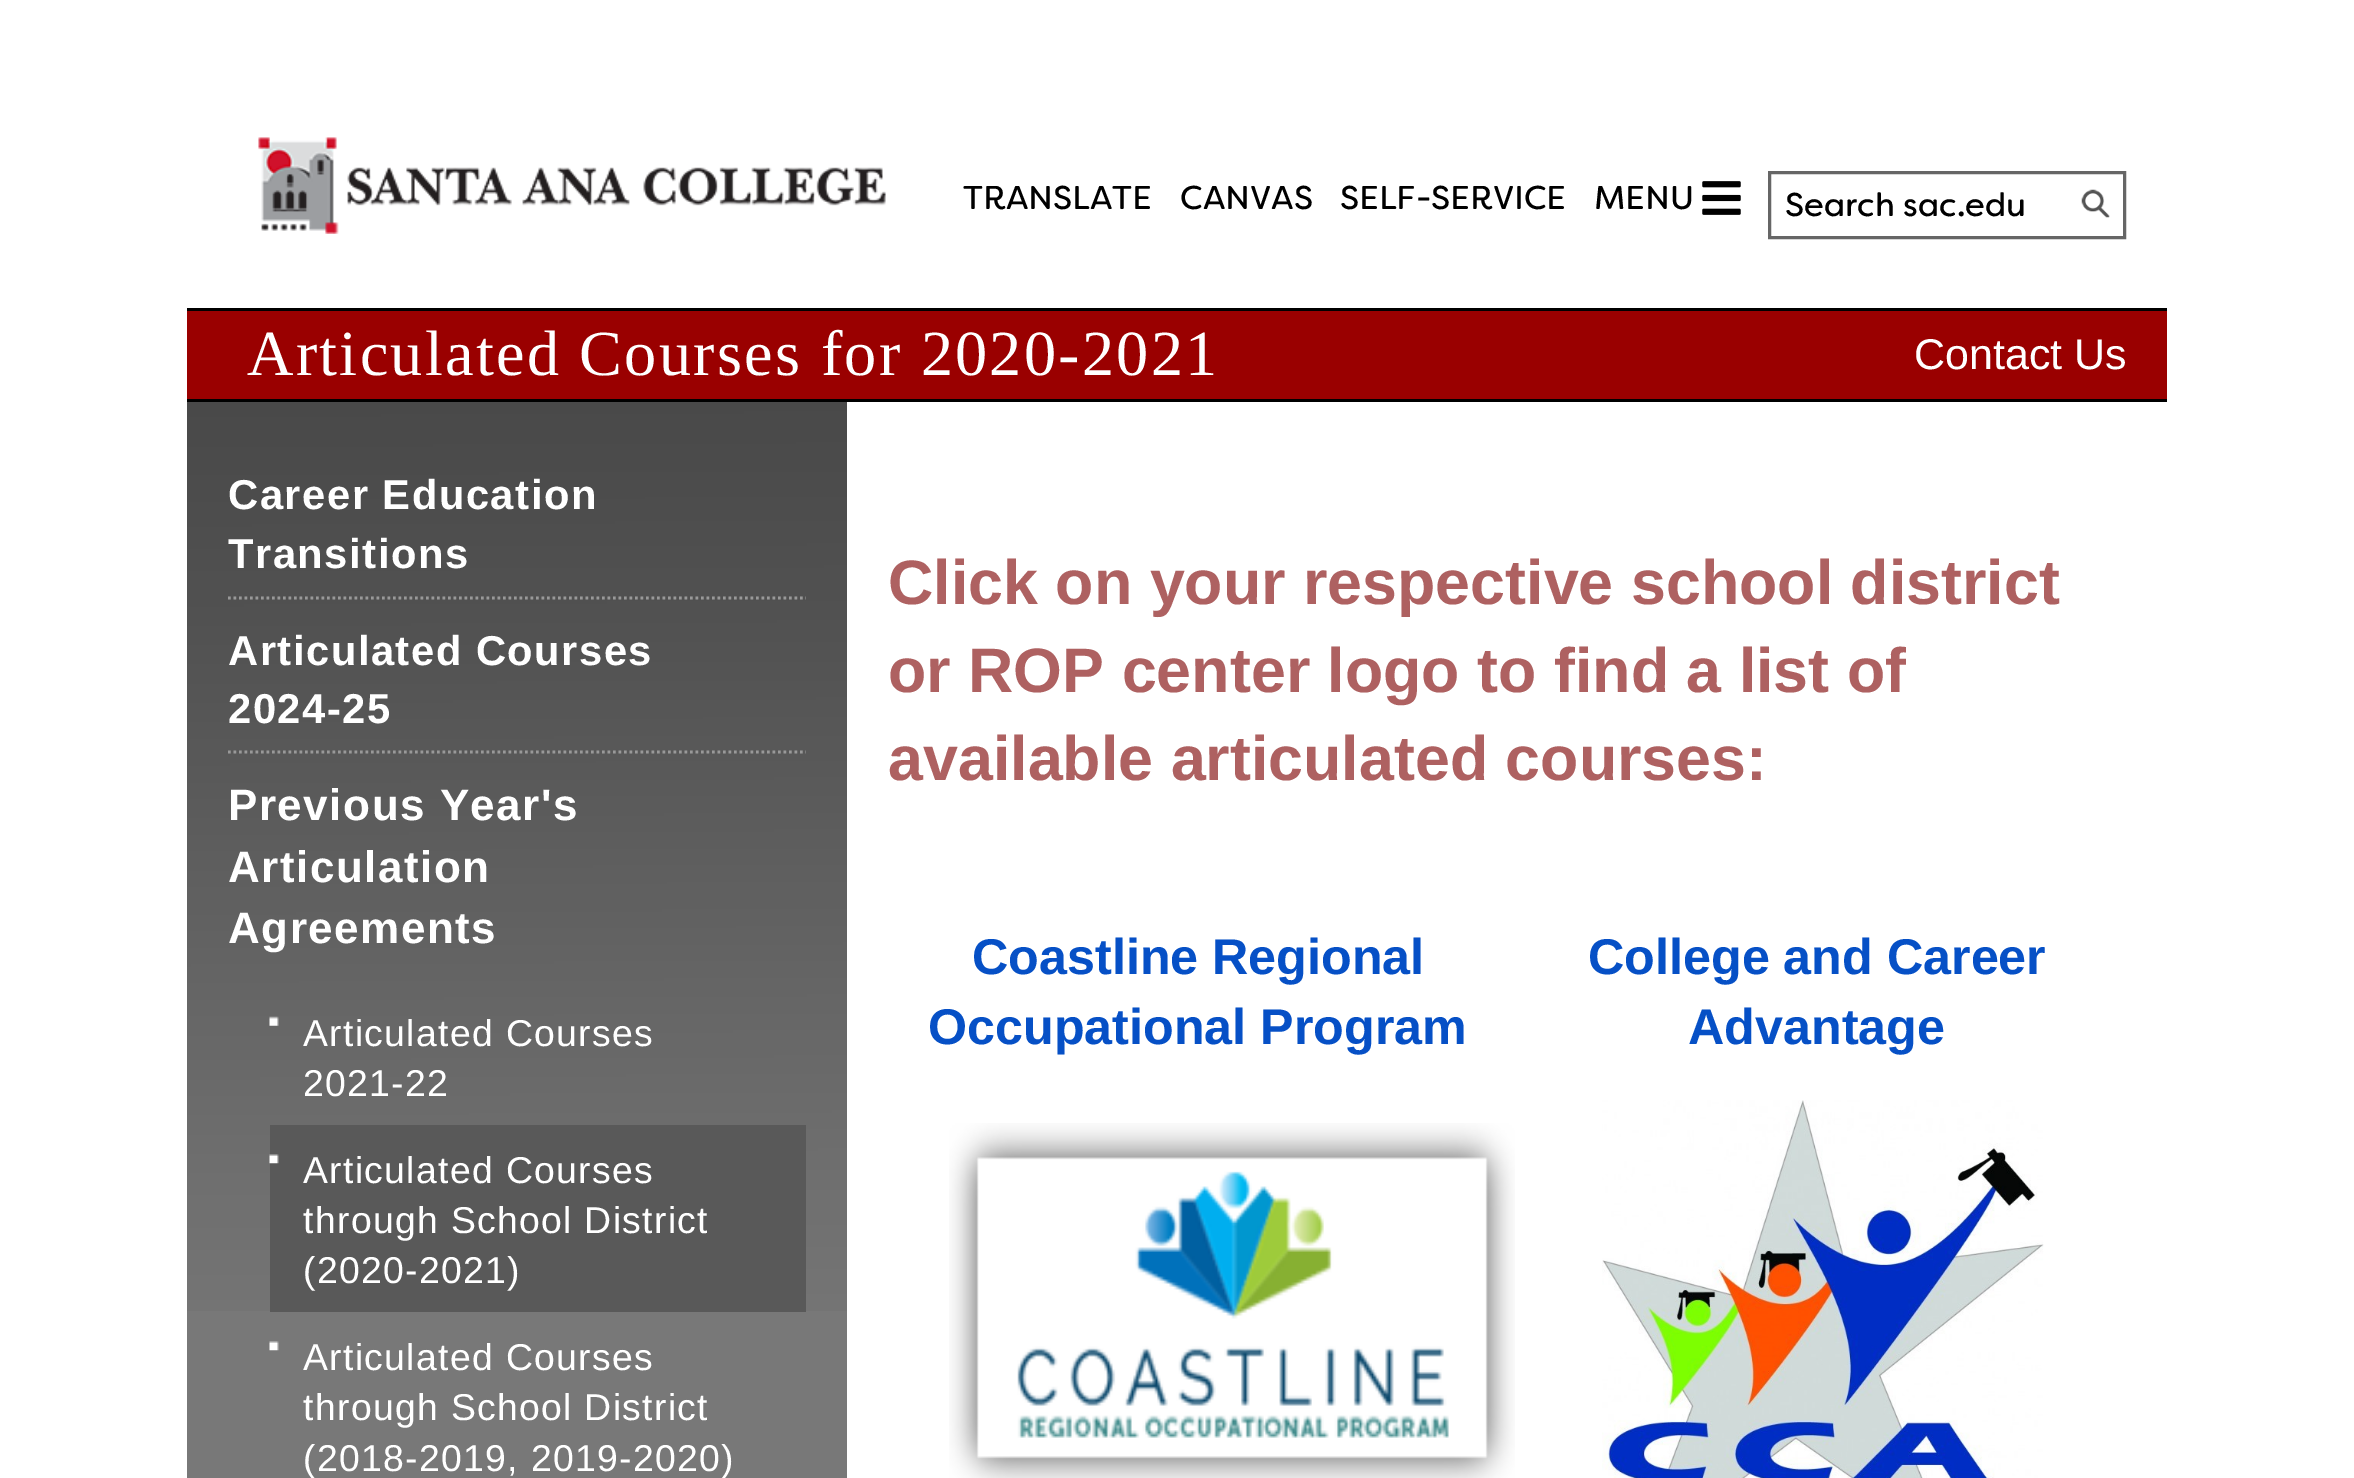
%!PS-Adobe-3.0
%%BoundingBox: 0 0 2354 1478
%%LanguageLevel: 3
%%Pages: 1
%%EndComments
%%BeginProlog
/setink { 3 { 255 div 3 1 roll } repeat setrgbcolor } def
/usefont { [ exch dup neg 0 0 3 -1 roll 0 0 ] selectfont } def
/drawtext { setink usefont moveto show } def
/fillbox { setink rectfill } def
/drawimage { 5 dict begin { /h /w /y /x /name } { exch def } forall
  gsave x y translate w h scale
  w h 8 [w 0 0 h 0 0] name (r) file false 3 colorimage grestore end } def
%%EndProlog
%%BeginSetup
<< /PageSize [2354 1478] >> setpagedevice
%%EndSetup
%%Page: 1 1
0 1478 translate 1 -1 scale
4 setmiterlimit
0 0 2354 1478 255 255 255 fillbox
(assets/img1.rgb) 258 137 628 97 drawimage
(TRANSLATE) 963 209 /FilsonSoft-Regular 33 0 0 0 drawtext
(CANVAS) 1180 209 /FilsonSoft-Regular 33 0 0 0 drawtext
(SELF-SERVICE) 1340 209 /FilsonSoft-Regular 33 0 0 0 drawtext
(MENU) 1594 209 /FilsonSoft-Regular 33 0 0 0 drawtext
(assets/img2.rgb) 1702 181 39 34 drawimage
102 102 102 setink
3 setlinewidth
1769.5 172.5 355 65 rectstroke
(Search sac.edu) 1785 216 /FilsonSoft-Regular 33 0 0 0 drawtext
(assets/img3.rgb) 2081 189 29 29 drawimage
187 311 1980 88 154 0 0 fillbox
187 308 1980 3 0 0 0 fillbox
187 399 1980 3 0 0 0 fillbox
/LiberationSerif-Regular 64.3 usefont
255 255 255 setink
247 375 moveto 2.25 0 (Articulated Courses for 2020-2021) ashow
(Contact Us) 1914 369 /LiberationSans-Regular 43 255 255 255 drawtext
187 402 660 1076 120 120 120 fillbox
(assets/img4.rgb) 187 402 660 909 drawimage
153 153 153 setink
2.8 setlinewidth
[2.75 2.75] 0 setdash
228 598 moveto 806 598 lineto stroke
/LiberationSans-Bold 41.75 usefont
255 255 255 setink
228 509 moveto 1.5 0 (Career Education) ashow
228 568 moveto 1.5 0 (Transitions) ashow
153 153 153 setink
228 752 moveto 806 752 lineto stroke
255 255 255 setink
228 665 moveto 1.5 0 (Articulated Courses) ashow
228 723 moveto 1.5 0 (2024-25) ashow
/LiberationSans-Bold 44 usefont
228 820 moveto 1.5 0 (Previous Year's) ashow
228 882 moveto 1.5 0 (Articulation) ashow
228 943 moveto 1.5 0 (Agreements) ashow
(assets/img5.rgb) 269 1016 10 10 drawimage
/LiberationSans-Regular 37.4 usefont
303 1046 moveto 1.3 0 (Articulated Courses) ashow
303 1096 moveto 1.3 0 (2021-22) ashow
270 1125 536 187 89 89 89 fillbox
(assets/img6.rgb) 269 1154 10 10 drawimage
255 255 255 setink
303 1183 moveto 1.3 0 (Articulated Courses) ashow
303 1233 moveto 1.3 0 (through School District) ashow
303 1283 moveto 1.3 0 (\(2020-2021\)) ashow
(assets/img7.rgb) 269 1341 10 10 drawimage
303 1370 moveto 1.3 0 (Articulated Courses) ashow
303 1420 moveto 1.3 0 (through School District) ashow
303 1471 moveto 1.3 0 (\(2018-2019, 2019-2020\)) ashow
(Click on your respective school district) 888 604 /LiberationSans-Bold 62.75 174 97 97 drawtext
(or ROP center logo to find a list of) 888 692 /LiberationSans-Bold 62.75 174 97 97 drawtext
(available articulated courses:) 888 780 /LiberationSans-Bold 62.75 174 97 97 drawtext
(Coastline Regional) 972 974 /LiberationSans-Bold 50.25 6 80 198 drawtext
(Occupational Program) 928 1044 /LiberationSans-Bold 50.25 6 80 198 drawtext
(assets/img8.rgb) 949 1123 566 355 drawimage
(College and Career) 1588 974 /LiberationSans-Bold 50.25 6 80 198 drawtext
(Advantage) 1688 1044 /LiberationSans-Bold 50.25 6 80 198 drawtext
(assets/img9.rgb) 1602 1100 442 378 drawimage
showpage
%%EOF
